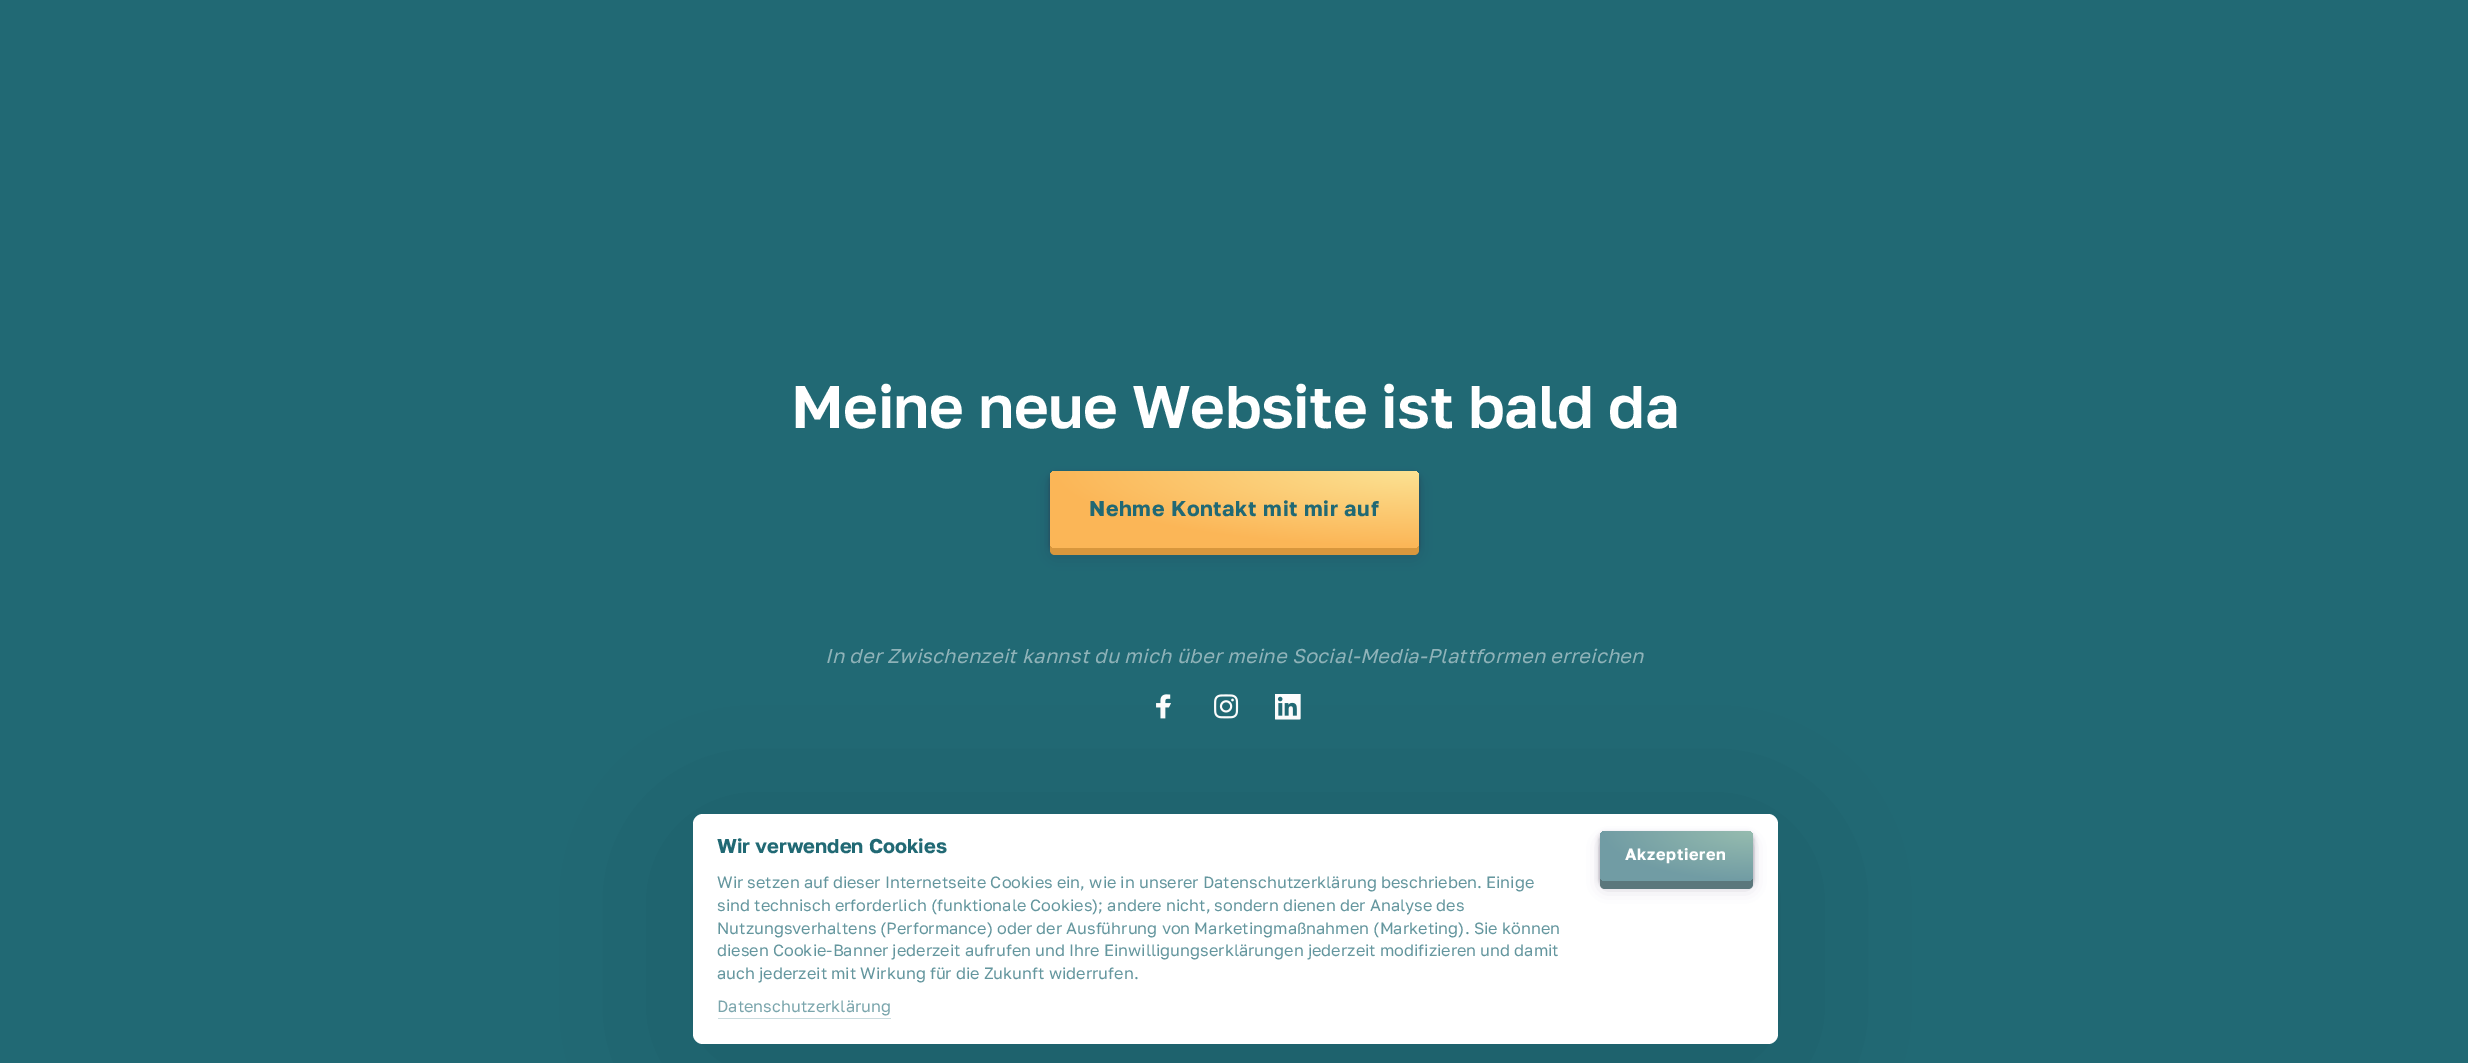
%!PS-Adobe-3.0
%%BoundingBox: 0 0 2468 1063
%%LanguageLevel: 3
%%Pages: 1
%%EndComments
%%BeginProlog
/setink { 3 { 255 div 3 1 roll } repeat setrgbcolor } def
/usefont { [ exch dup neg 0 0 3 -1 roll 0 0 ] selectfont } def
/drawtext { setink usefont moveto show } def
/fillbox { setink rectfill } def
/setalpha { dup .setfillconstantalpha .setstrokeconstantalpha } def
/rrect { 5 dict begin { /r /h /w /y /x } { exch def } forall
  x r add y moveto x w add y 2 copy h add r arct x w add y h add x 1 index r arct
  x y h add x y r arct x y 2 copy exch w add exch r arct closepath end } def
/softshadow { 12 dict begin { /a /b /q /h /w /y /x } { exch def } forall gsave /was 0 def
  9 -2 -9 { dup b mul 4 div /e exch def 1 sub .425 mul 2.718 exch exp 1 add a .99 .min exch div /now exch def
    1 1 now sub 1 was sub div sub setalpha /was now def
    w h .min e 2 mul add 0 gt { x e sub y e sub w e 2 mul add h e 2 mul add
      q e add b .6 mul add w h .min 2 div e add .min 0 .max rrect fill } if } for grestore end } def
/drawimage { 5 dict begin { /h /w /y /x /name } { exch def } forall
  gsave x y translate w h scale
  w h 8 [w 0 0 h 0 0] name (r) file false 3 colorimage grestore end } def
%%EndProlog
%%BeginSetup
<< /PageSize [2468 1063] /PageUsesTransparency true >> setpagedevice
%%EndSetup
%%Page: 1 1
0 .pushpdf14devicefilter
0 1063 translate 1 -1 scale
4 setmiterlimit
0 0 2468 1063 33 105 116 fillbox
/GolosText-SemiBold 60 usefont
255 255 255 setink
791 428 moveto -0.5 0 (Meine neue Website ist bald da) ashow
45 35 66 setink
1054 484 361 69 1 8 0.3 softshadow
1050 474 369 76 5 2.5 0.4 softshadow
216 151 61 setink
1050 542 moveto 1050 550 lineto 1050 553 1052 555 1055 555 curveto 1414 555 lineto 1417 555 1419 553 1419 550 curveto 1419 482 lineto 1419 542 lineto 1419 545 1417 548 1414 548 curveto 1055 548 lineto 1052 548 1050 545 1050 542 curveto closepath fill
gsave 1050 471 369 77 5 rrect clip newpath 1419 471 translate 369 76 scale
<< /ShadingType 3 /ColorSpace /DeviceRGB /Coords [0 0 0 0 0 1] /Extend [true true] /Function << /FunctionType 2 /Domain [0 1] /C0 [0.988 0.886 0.576] /C1 [0.984 0.714 0.341] /N 1 >> >> shfill grestore
/GolosText-Bold 21.25 usefont
33 105 116 setink
1089 516 moveto 0.6 0 (Nehme Kontakt mit mir auf) ashow
/GolosText-Italic 20 usefont
144 180 186 setink
825 663 moveto 0.25 0 (In der Zwischenzeit kannst du mich über meine Social-Media-Plattformen erreichen) ashow
(assets/img1.rgb) 1156 694 15 25 drawimage
(assets/img2.rgb) 1214 694 25 25 drawimage
(assets/img3.rgb) 1275 694 26 26 drawimage
0 0 0 setink
668 814 1135 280 35 87.5 0.1 softshadow
255 255 255 setink
693 814 1085 230 10 rrect fill
(Wir verwenden Cookies) 717 853 /GolosText-Bold 20 33 105 116 drawtext
(Wir setzen auf dieser Internetseite Cookies ein, wie in unserer Datenschutzerklärung beschrieben. Einige) 717 888 /GolosText-Regular 16.25 100 150 158 drawtext
(sind technisch erforderlich \(funktionale Cookies\); andere nicht, sondern dienen der Analyse des) 717 911 /GolosText-Regular 16.25 100 150 158 drawtext
(Nutzungsverhaltens \(Performance\) oder der Ausführung von Marketingmaßnahmen \(Marketing\). Sie können) 717 934 /GolosText-Regular 16.25 100 150 158 drawtext
(diesen Cookie-Banner jederzeit aufrufen und Ihre Einwilligungserklärungen jederzeit modifizieren und damit) 717 956 /GolosText-Regular 16.25 100 150 158 drawtext
(auch jederzeit mit Wirkung für die Zukunft widerrufen.) 717 979 /GolosText-Regular 16.25 100 150 158 drawtext
(Datenschutzerklärung) 717 1012 /GolosText-Regular 16.25 122 165 172 drawtext
718 1018 173 1 202 219 222 fillbox
45 35 66 setink
1604 844 145 42 1 8 0.3 softshadow
1600 834 153 50 5 2.5 0.4 softshadow
91 119 124 setink
1600 876 moveto 1600 884 lineto 1600 887 1602 889 1605 889 curveto 1748 889 lineto 1751 889 1753 887 1753 884 curveto 1753 844 lineto 1752 842 lineto 1752 876 lineto 1752 879 1750 881 1748 881 curveto 1605 881 lineto 1602 881 1600 879 1600 876 curveto closepath fill
gsave 1600 831 153 50 5 rrect clip newpath 1753 831 translate 153 50 scale
<< /ShadingType 3 /ColorSpace /DeviceRGB /Coords [0 0 0 0 0 1] /Extend [true true] /Function << /FunctionType 2 /Domain [0 1] /C0 [0.588 0.737 0.686] /C1 [0.443 0.612 0.643] /N 1 >> >> shfill grestore
/GolosText-Bold 16.25 usefont
255 255 255 setink
1625 860 moveto 0.6 0 (Akzeptieren) ashow
.poppdf14devicefilter showpage
%%EOF
